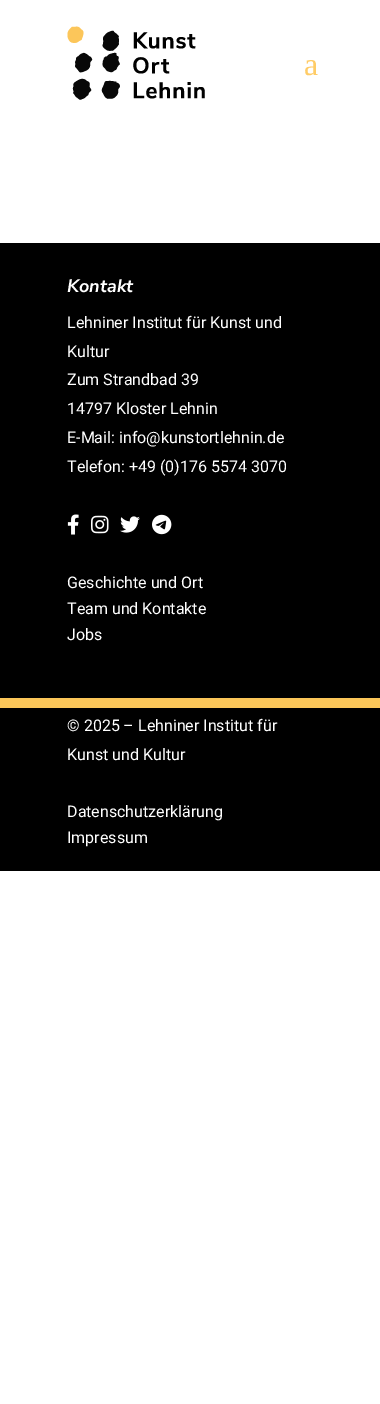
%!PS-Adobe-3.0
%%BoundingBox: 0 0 380 1404
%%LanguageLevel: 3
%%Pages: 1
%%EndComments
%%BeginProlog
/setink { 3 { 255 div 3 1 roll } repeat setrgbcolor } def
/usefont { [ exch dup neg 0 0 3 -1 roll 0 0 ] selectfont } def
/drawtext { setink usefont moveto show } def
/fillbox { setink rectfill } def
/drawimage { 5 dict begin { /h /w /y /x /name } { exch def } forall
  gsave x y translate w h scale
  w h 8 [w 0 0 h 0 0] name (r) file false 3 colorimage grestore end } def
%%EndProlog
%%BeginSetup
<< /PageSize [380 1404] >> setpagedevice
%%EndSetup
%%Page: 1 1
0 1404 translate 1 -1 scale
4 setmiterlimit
0 0 380 1404 255 255 255 fillbox
(assets/img1.rgb) 67 26 138 74 drawimage
(a) 304 75 /LiberationSerif-Regular 32 255 204 102 drawtext
0 243 380 455 0 0 0 fillbox
(Kontakt) 67 292 /NunitoSans-BoldItalic 18 255 255 255 drawtext
(Lehniner Institut für Kunst und) 67 328 /Roboto-Regular 16 255 255 255 drawtext
(Kultur) 67 357 /Roboto-Regular 16 255 255 255 drawtext
(Zum Strandbad 39) 67 385 /Roboto-Regular 16 255 255 255 drawtext
(14797 Kloster Lehnin) 67 414 /Roboto-Regular 16 255 255 255 drawtext
(E-Mail: info@kunstortlehnin.de) 67 443 /Roboto-Regular 16 255 255 255 drawtext
(Telefon: +49 \(0\)176 5574 3070) 67 472 /Roboto-Regular 16 255 255 255 drawtext
(assets/img2.rgb) 67 514 12 21 drawimage
(assets/img3.rgb) 91 515 18 19 drawimage
(assets/img4.rgb) 120 516 20 17 drawimage
(assets/img5.rgb) 152 514 20 21 drawimage
(Geschichte und Ort) 67 588 /Roboto-Regular 16 255 255 255 drawtext
(Team und Kontakte) 67 614 /Roboto-Regular 16 255 255 255 drawtext
(Jobs) 67 640 /Roboto-Regular 16 255 255 255 drawtext
0 708 380 163 0 0 0 fillbox
0 698 380 10 251 198 89 fillbox
(© 2025 – Lehniner Institut für) 67 731 /Roboto-Regular 16 255 255 255 drawtext
(Kunst und Kultur) 67 760 /Roboto-Regular 16 255 255 255 drawtext
(Datenschutzerklärung) 67 817 /Roboto-Regular 16 255 255 255 drawtext
(Impressum) 67 843 /Roboto-Regular 16 255 255 255 drawtext
showpage
%%EOF
